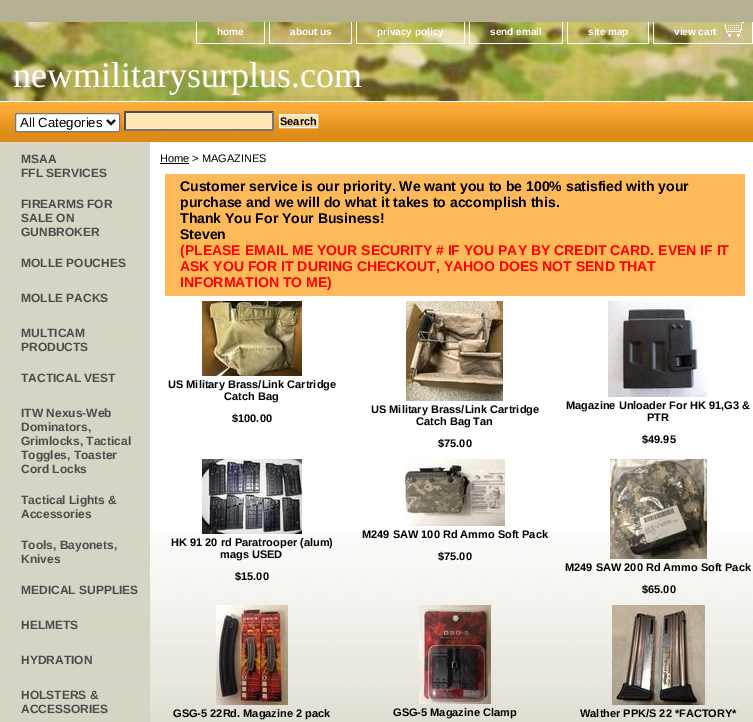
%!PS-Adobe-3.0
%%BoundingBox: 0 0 753 722
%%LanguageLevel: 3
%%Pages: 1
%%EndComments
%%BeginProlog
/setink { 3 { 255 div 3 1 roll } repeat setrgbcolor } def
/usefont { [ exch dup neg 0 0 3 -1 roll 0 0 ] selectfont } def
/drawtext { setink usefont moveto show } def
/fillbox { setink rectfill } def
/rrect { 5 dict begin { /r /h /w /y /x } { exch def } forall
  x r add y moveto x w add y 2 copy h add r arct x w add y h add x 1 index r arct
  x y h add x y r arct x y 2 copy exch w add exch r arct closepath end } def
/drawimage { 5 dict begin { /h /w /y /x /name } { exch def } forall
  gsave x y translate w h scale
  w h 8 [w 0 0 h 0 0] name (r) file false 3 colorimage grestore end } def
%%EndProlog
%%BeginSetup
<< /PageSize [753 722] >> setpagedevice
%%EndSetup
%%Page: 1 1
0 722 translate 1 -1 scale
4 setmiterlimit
0 0 753 722 180 176 146 fillbox
(assets/img1.rgb) 0 22 753 79 drawimage
264 22 1 22 255 255 255 fillbox
196 43 69 1 255 255 255 fillbox
196 22 1 22 255 255 255 fillbox
(home) 217 35 /LiberationSans-Bold 10 255 255 255 drawtext
351 22 1 22 255 255 255 fillbox
269 43 83 1 255 255 255 fillbox
269 22 1 22 255 255 255 fillbox
(about us) 290 35 /LiberationSans-Bold 10 255 255 255 drawtext
464 22 1 22 255 255 255 fillbox
356 43 109 1 255 255 255 fillbox
356 22 1 22 255 255 255 fillbox
(privacy policy) 377 35 /LiberationSans-Bold 10 255 255 255 drawtext
562 22 1 22 255 255 255 fillbox
469 43 94 1 255 255 255 fillbox
469 22 1 22 255 255 255 fillbox
(send email) 490 35 /LiberationSans-Bold 10 255 255 255 drawtext
648 22 1 22 255 255 255 fillbox
567 43 82 1 255 255 255 fillbox
567 22 1 22 255 255 255 fillbox
(site map) 588 35 /LiberationSans-Bold 10 255 255 255 drawtext
752 22 1 22 255 255 255 fillbox
653 43 100 1 255 255 255 fillbox
653 22 1 22 255 255 255 fillbox
(assets/img2.rgb) 724 22 20 15 drawimage
(view cart) 674 35 /LiberationSans-Bold 10 255 255 255 drawtext
(newmilitarysurplus.com) 13 87 /LiberationSerif-Regular 36 255 255 255 drawtext
(assets/img3.rgb) 0 101 753 41 drawimage
15.5 113.5 104 18 1.5 rrect gsave fill grestore
118 118 118 setink
stroke
0 0 0 setink
2 setlinewidth
107 120 moveto 111 124 lineto 115 120 lineto stroke
(All Categories) 20 127 /LiberationSans-Regular 13.25 0 0 0 drawtext
124 111 150 20 255 231 181 fillbox
79 79 79 setink
124 111 moveto 274 111 lineto 272 113 lineto 126 113 lineto closepath fill
118 118 118 setink
274 111 moveto 274 131 lineto 272 129 lineto 272 113 lineto closepath fill
274 131 moveto 124 131 lineto 126 129 lineto 272 129 lineto closepath fill
79 79 79 setink
124 131 moveto 124 111 lineto 126 113 lineto 126 129 lineto closepath fill
(assets/img4.rgb) 280 115 37 12 drawimage
255 255 255 setink
1 setlinewidth
279.5 114.5 38 13 rectstroke
(Search) 280 125 /LiberationSans-Bold 11 0 0 0 drawtext
150 142 603 389 255 255 255 fillbox
(assets/img5.rgb) 150 531 603 191 drawimage
0 142 150 580 214 213 197 fillbox
0 186 150 1 216 215 213 fillbox
(MSAA) 21 163 /LiberationSans-Bold 12 75 75 75 drawtext
(FFL SERVICES) 21 177 /LiberationSans-Bold 12 75 75 75 drawtext
0 245 150 1 216 215 213 fillbox
(FIREARMS FOR) 21 208 /LiberationSans-Bold 12 75 75 75 drawtext
(SALE ON) 21 222 /LiberationSans-Bold 12 75 75 75 drawtext
(GUNBROKER) 21 236 /LiberationSans-Bold 12 75 75 75 drawtext
0 280 150 1 216 215 213 fillbox
(MOLLE POUCHES) 21 267 /LiberationSans-Bold 12 75 75 75 drawtext
0 315 150 1 216 215 213 fillbox
(MOLLE PACKS) 21 302 /LiberationSans-Bold 12 75 75 75 drawtext
0 360 150 1 216 215 213 fillbox
(MULTICAM) 21 337 /LiberationSans-Bold 12 75 75 75 drawtext
(PRODUCTS) 21 351 /LiberationSans-Bold 12 75 75 75 drawtext
0 395 150 1 216 215 213 fillbox
(TACTICAL VEST) 21 382 /LiberationSans-Bold 12 75 75 75 drawtext
0 482 150 1 216 215 213 fillbox
(ITW Nexus-Web) 21 417 /LiberationSans-Bold 12 75 75 75 drawtext
(Dominators,) 21 431 /LiberationSans-Bold 12 75 75 75 drawtext
(Grimlocks, Tactical) 21 445 /LiberationSans-Bold 12 75 75 75 drawtext
(Toggles, Toaster) 21 459 /LiberationSans-Bold 12 75 75 75 drawtext
(Cord Locks) 21 473 /LiberationSans-Bold 12 75 75 75 drawtext
0 527 150 1 216 215 213 fillbox
(Tactical Lights &) 21 504 /LiberationSans-Bold 12 75 75 75 drawtext
(Accessories) 21 518 /LiberationSans-Bold 12 75 75 75 drawtext
0 572 150 1 216 215 213 fillbox
(Tools, Bayonets,) 21 549 /LiberationSans-Bold 12 75 75 75 drawtext
(Knives) 21 563 /LiberationSans-Bold 12 75 75 75 drawtext
0 607 150 1 216 215 213 fillbox
(MEDICAL SUPPLIES) 21 594 /LiberationSans-Bold 12 75 75 75 drawtext
0 642 150 1 216 215 213 fillbox
(HELMETS) 21 629 /LiberationSans-Bold 12 75 75 75 drawtext
0 677 150 1 216 215 213 fillbox
(HYDRATION) 21 664 /LiberationSans-Bold 12 75 75 75 drawtext
(HOLSTERS &) 21 699 /LiberationSans-Bold 12 75 75 75 drawtext
(ACCESSORIES) 21 713 /LiberationSans-Bold 12 75 75 75 drawtext
(Home > MAGAZINES) 160 162 /LiberationSans-Regular 11 0 0 0 drawtext
160 163 29 1 0 0 0 fillbox
165 174 580 122 254 186 90 fillbox
(Customer service is our priority. We want you to be 100% satisfied with your) 180 191 /LiberationSans-Bold 14 0 0 0 drawtext
(purchase and we will do what it takes to accomplish this.) 180 207 /LiberationSans-Bold 14 0 0 0 drawtext
(Thank You For Your Business!) 180 223 /LiberationSans-Bold 14 0 0 0 drawtext
(Steven) 180 239 /LiberationSans-Bold 14 0 0 0 drawtext
(\(PLEASE EMAIL ME YOUR SECURITY # IF YOU PAY BY CREDIT CARD. EVEN IF IT) 180 255 /LiberationSans-Bold 14 255 0 0 drawtext
(ASK YOU FOR IT DURING CHECKOUT, YAHOO DOES NOT SEND THAT) 180 271 /LiberationSans-Bold 14 255 0 0 drawtext
(INFORMATION TO ME\)) 180 287 /LiberationSans-Bold 14 255 0 0 drawtext
(assets/img6.rgb) 202 301 100 75 drawimage
(US Military Brass/Link Cartridge) 168 388 /LiberationSans-Bold 11 0 0 0 drawtext
(Catch Bag) 224 400 /LiberationSans-Bold 11 0 0 0 drawtext
($100.00) 232 422 /LiberationSans-Bold 11 0 0 0 drawtext
(assets/img7.rgb) 406 301 97 100 drawimage
(US Military Brass/Link Cartridge) 371 413 /LiberationSans-Bold 11 0 0 0 drawtext
(Catch Bag Tan) 416 425 /LiberationSans-Bold 11 0 0 0 drawtext
($75.00) 438 447 /LiberationSans-Bold 11 0 0 0 drawtext
(assets/img8.rgb) 608 301 100 96 drawimage
(Magazine Unloader For HK 91,G3 &) 566 409 /LiberationSans-Bold 11 0 0 0 drawtext
(PTR) 647 421 /LiberationSans-Bold 11 0 0 0 drawtext
($49.95) 642 443 /LiberationSans-Bold 11 0 0 0 drawtext
(assets/img9.rgb) 202 459 100 75 drawimage
(HK 91 20 rd Paratrooper \(alum\)) 171 546 /LiberationSans-Bold 11 0 0 0 drawtext
(mags USED) 220 558 /LiberationSans-Bold 11 0 0 0 drawtext
($15.00) 235 580 /LiberationSans-Bold 11 0 0 0 drawtext
(assets/img10.rgb) 405 459 100 67 drawimage
(M249 SAW 100 Rd Ammo Soft Pack) 362 538 /LiberationSans-Bold 11 0 0 0 drawtext
($75.00) 438 560 /LiberationSans-Bold 11 0 0 0 drawtext
(assets/img11.rgb) 610 459 97 100 drawimage
(M249 SAW 200 Rd Ammo Soft Pack) 565 571 /LiberationSans-Bold 11 0 0 0 drawtext
($65.00) 642 593 /LiberationSans-Bold 11 0 0 0 drawtext
(assets/img12.rgb) 216 605 72 100 drawimage
(GSG-5 22Rd. Magazine 2 pack) 173 717 /LiberationSans-Bold 11 0 0 0 drawtext
(assets/img13.rgb) 419 605 72 99 drawimage
(GSG-5 Magazine Clamp) 393 716 /LiberationSans-Bold 11 0 0 0 drawtext
(assets/img14.rgb) 612 605 93 100 drawimage
(Walther PPK/S 22 *FACTORY*) 580 717 /LiberationSans-Bold 11 0 0 0 drawtext
showpage
%%EOF
